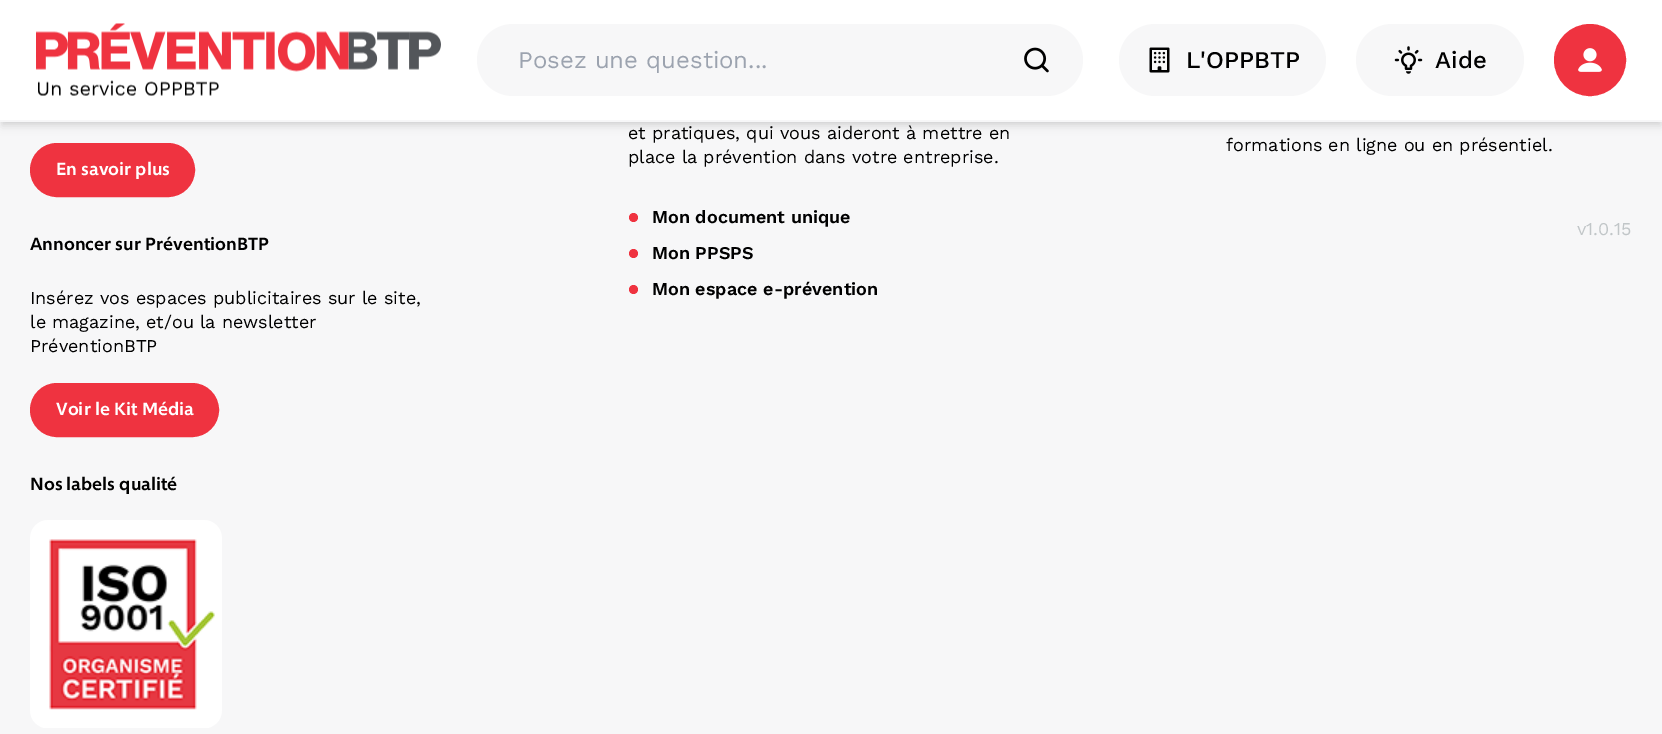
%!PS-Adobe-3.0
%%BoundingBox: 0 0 1662 734
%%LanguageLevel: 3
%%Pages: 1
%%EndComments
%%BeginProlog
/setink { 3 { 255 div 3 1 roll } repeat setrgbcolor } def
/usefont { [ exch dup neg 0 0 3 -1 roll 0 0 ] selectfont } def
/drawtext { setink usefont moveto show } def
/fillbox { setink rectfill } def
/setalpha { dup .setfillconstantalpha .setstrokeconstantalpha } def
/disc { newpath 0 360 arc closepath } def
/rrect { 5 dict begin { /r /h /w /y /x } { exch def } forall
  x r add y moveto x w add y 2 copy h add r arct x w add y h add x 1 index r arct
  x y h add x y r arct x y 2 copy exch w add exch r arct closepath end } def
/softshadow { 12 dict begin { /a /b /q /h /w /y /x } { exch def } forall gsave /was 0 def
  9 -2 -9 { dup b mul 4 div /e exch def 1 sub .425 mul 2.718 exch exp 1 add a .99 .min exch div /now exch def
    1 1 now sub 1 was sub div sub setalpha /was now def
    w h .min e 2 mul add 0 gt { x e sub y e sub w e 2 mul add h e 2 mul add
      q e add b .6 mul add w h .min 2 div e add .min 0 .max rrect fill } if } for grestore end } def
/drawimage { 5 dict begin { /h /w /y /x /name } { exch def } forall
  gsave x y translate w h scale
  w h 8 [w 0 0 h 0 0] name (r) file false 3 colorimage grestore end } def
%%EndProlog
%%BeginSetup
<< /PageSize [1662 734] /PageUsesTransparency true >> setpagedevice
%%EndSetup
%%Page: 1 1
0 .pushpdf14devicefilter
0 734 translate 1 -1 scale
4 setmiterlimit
0 0 1662 734 247 247 248 fillbox
0 0 0 setink
3 6 1656 116 0 3 0.1 softshadow
2 8 1659 118 0 4.5 0.1 softshadow
0 0 1662 120 255 255 255 fillbox
0 120 1662 2 247 247 248 fillbox
(assets/img1.rgb) 36 23 405 73 drawimage
477 24 606 72 36 rrect fill
(Posez une question...) 518 68 /WorkSans-Regular 24 156 163 175 drawtext
(assets/img2.rgb) 1024 47 25 26 drawimage
247 247 248 setink
1119 24 207 72 36 rrect fill
(assets/img3.rgb) 1149 47 21 26 drawimage
(L'OPPBTP) 1186 68 /WorkSans-Medium 24 0 0 0 drawtext
247 247 248 setink
1356 24 168 72 36 rrect fill
(assets/img4.rgb) 1394 46 29 28 drawimage
(Aide) 1435 68 /WorkSans-Medium 24 0 0 0 drawtext
239 51 64 setink
1590 60 35 disc gsave fill grestore
2 setlinewidth
stroke
(assets/img5.rgb) 1578 48 24 24 drawimage
31 144 163 52 26 rrect gsave fill grestore
stroke
(En savoir plus) 56 175 /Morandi-SemiBold 18 255 255 255 drawtext
(Annoncer sur PréventionBTP) 30 250 /Morandi-SemiBold 18 0 0 0 drawtext
(Insérez vos espaces publicitaires sur le site,) 30 304 /WorkSans-Regular 18 0 0 0 drawtext
(le magazine, et/ou la newsletter) 30 328 /WorkSans-Regular 18 0 0 0 drawtext
(PréventionBTP) 30 352 /WorkSans-Regular 18 0 0 0 drawtext
239 51 64 setink
31 384 187 52 26 rrect gsave fill grestore
stroke
(Voir le Kit Média) 56 415 /Morandi-SemiBold 18 255 255 255 drawtext
(Nos labels qualité) 30 490 /Morandi-SemiBold 18 0 0 0 drawtext
(assets/img6.rgb) 30 520 192 208 drawimage
(et pratiques, qui vous aideront à mettre en) 628 139 /WorkSans-Regular 18 0 0 0 drawtext
(place la prévention dans votre entreprise.) 628 163 /WorkSans-Regular 18 0 0 0 drawtext
239 51 64 setink
633.5 217.5 4.5 disc fill
(Mon document unique) 652 223 /WorkSans-SemiBold 18 0 0 0 drawtext
239 51 64 setink
633.5 253.5 4.5 disc fill
(Mon PPSPS) 652 259 /WorkSans-SemiBold 18 0 0 0 drawtext
239 51 64 setink
633.5 289.5 4.5 disc fill
(Mon espace e-prévention) 652 295 /WorkSans-SemiBold 18 0 0 0 drawtext
(formations en ligne ou en présentiel.) 1226 151 /WorkSans-Regular 18 0 0 0 drawtext
(v1.0.15) 1577 235 /WorkSans-Regular 18 193 198 200 drawtext
.poppdf14devicefilter showpage
%%EOF
